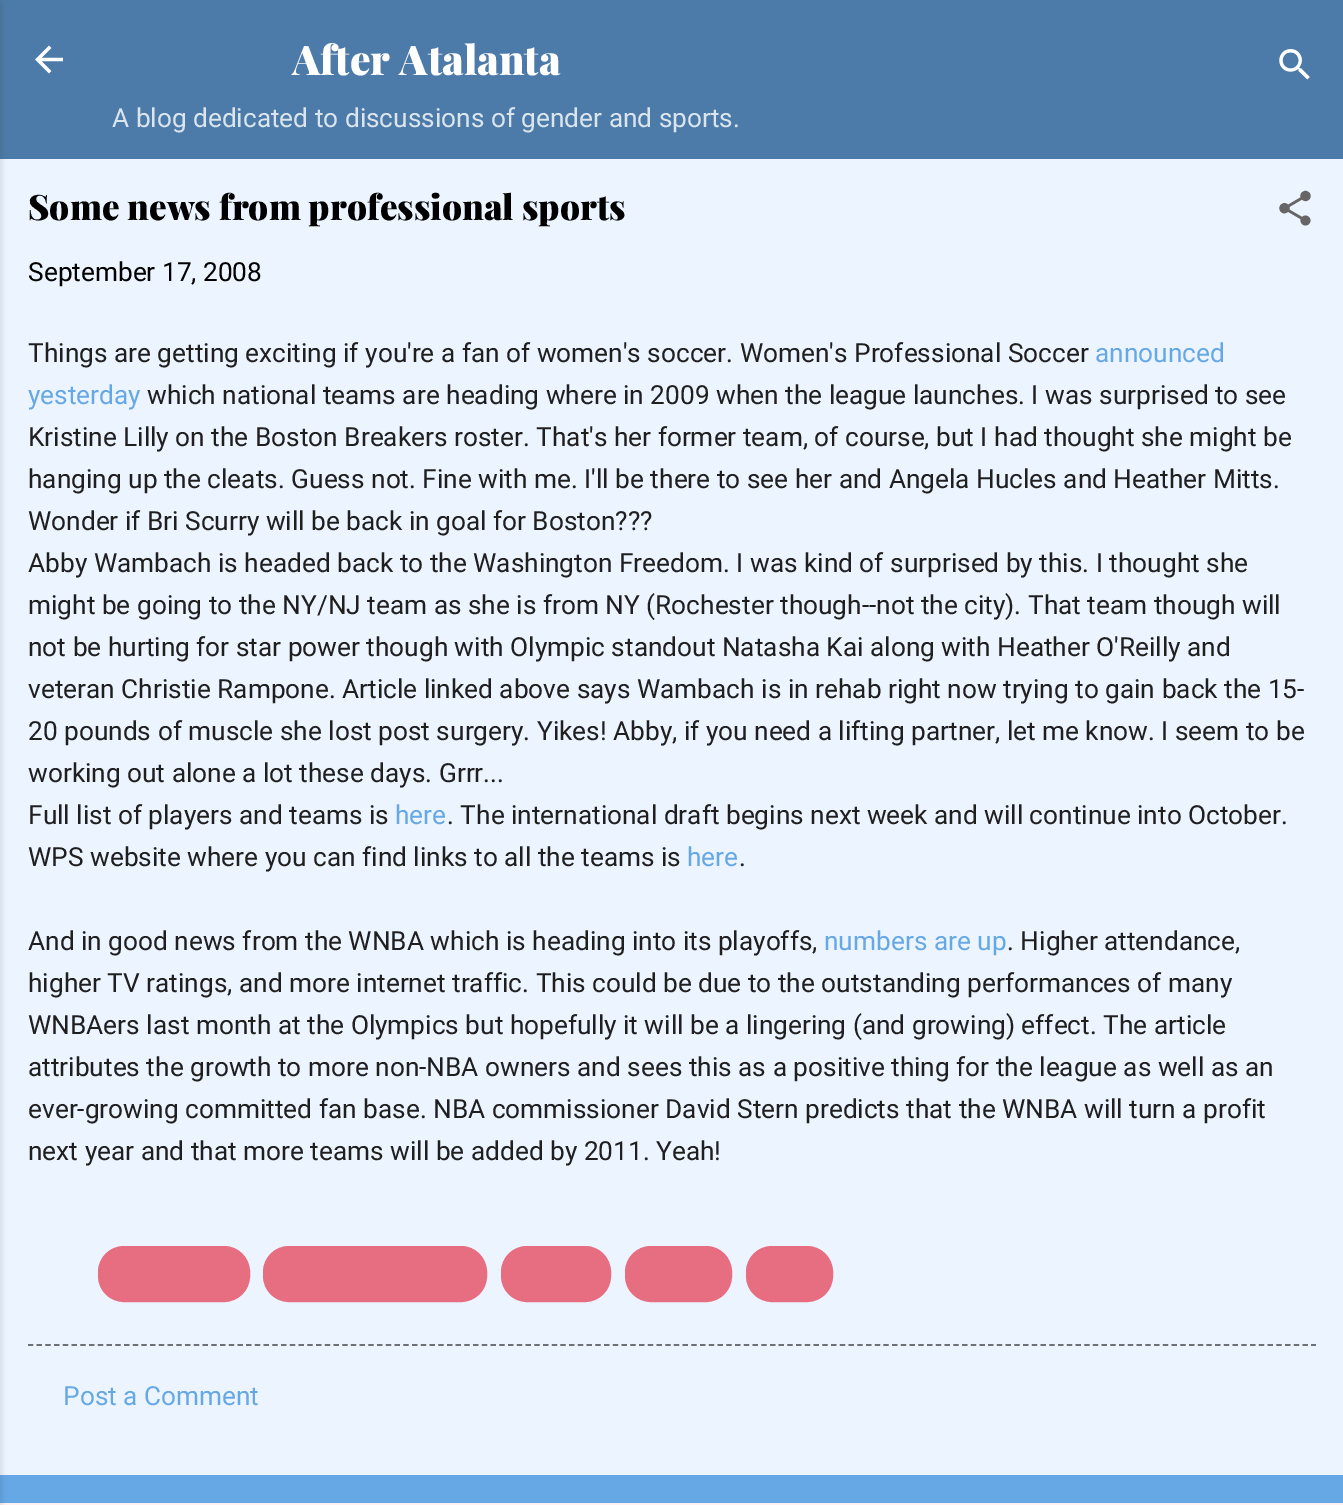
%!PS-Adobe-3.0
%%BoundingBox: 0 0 1343 1505
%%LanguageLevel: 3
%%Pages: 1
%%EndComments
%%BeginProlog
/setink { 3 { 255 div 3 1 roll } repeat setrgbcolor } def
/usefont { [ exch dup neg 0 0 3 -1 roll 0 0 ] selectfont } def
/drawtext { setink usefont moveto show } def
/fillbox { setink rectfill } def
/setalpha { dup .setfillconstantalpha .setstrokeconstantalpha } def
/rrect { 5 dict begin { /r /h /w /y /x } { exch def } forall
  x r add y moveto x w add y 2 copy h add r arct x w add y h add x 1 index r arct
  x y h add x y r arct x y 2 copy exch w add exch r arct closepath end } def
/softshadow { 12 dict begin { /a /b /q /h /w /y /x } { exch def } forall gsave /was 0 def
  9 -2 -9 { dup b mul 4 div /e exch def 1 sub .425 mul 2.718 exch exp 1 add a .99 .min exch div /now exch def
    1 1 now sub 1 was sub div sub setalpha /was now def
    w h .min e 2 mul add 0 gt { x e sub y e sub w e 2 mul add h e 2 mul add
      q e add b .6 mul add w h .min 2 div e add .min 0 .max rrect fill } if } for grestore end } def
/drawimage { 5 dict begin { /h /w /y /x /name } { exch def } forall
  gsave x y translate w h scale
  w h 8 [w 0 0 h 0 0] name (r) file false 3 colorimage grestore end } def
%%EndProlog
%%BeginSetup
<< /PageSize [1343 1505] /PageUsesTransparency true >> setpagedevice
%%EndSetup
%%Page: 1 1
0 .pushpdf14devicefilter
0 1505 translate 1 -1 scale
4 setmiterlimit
0 0 1343 1505 102 168 230 fillbox
0 0 1343 159 77 123 169 fillbox
0 159 1343 1316 236 245 255 fillbox
0 1503 1343 2 255 240 242 fillbox
0 0 0 setink
-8 2 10 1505 0 2.5 0.1 softshadow
(assets/img1.rgb) 35 45 28 29 drawimage
(After Atalanta) 292 75 /PlayfairDisplay-Black 41 255 255 255 drawtext
(A blog dedicated to discussions of gender and sports.) 112 127 /Roboto-Regular 26.25 219 229 238 drawtext
(assets/img2.rgb) 1279 49 31 31 drawimage
(Some news from professional sports) 28 220 /PlayfairDisplay-Black 35 0 0 0 drawtext
(assets/img3.rgb) 1279 190 32 36 drawimage
(September 17, 2008) 28 281 /Roboto-Regular 26.25 0 0 0 drawtext
(Things are getting exciting if you're a fan of women's soccer. Women's Professional Soccer) 28 362 /Roboto-Regular 26.25 32 31 32 drawtext
(announced) 1095 362 /Roboto-Regular 26.25 102 168 230 drawtext
(yesterday) 28 404 /Roboto-Regular 26.25 102 168 230 drawtext
(which national teams are heading where in 2009 when the league launches. I was surprised to see) 147 404 /Roboto-Regular 26.25 32 31 32 drawtext
(Kristine Lilly on the Boston Breakers roster. That's her former team, of course, but I had thought she might be) 28 446 /Roboto-Regular 26.25 32 31 32 drawtext
(hanging up the cleats. Guess not. Fine with me. I'll be there to see her and Angela Hucles and Heather Mitts.) 28 488 /Roboto-Regular 26.25 32 31 32 drawtext
(Wonder if Bri Scurry will be back in goal for Boston???) 28 530 /Roboto-Regular 26.25 32 31 32 drawtext
(Abby Wambach is headed back to the Washington Freedom. I was kind of surprised by this. I thought she) 28 572 /Roboto-Regular 26.25 32 31 32 drawtext
(might be going to the NY/NJ team as she is from NY \(Rochester though--not the city\). That team though will) 28 614 /Roboto-Regular 26.25 32 31 32 drawtext
(not be hurting for star power though with Olympic standout Natasha Kai along with Heather O'Reilly and) 28 656 /Roboto-Regular 26.25 32 31 32 drawtext
(veteran Christie Rampone. Article linked above says Wambach is in rehab right now trying to gain back the 15-) 28 698 /Roboto-Regular 26.25 32 31 32 drawtext
(20 pounds of muscle she lost post surgery. Yikes! Abby, if you need a lifting partner, let me know. I seem to be) 28 740 /Roboto-Regular 26.25 32 31 32 drawtext
(working out alone a lot these days. Grrr...) 28 782 /Roboto-Regular 26.25 32 31 32 drawtext
(Full list of players and teams is) 28 824 /Roboto-Regular 26.25 32 31 32 drawtext
(here) 395 824 /Roboto-Regular 26.25 102 168 230 drawtext
(. The international draft begins next week and will continue into October.) 447 824 /Roboto-Regular 26.25 32 31 32 drawtext
(WPS website where you can find links to all the teams is) 28 866 /Roboto-Regular 26.25 32 31 32 drawtext
(here) 687 866 /Roboto-Regular 26.25 102 168 230 drawtext
(.) 739 866 /Roboto-Regular 26.25 32 31 32 drawtext
(And in good news from the WNBA which is heading into its playoffs,) 28 950 /Roboto-Regular 26.25 32 31 32 drawtext
(numbers are up) 824 950 /Roboto-Regular 26.25 102 168 230 drawtext
(. Higher attendance,) 1007 950 /Roboto-Regular 26.25 32 31 32 drawtext
(higher TV ratings, and more internet traffic. This could be due to the outstanding performances of many) 28 992 /Roboto-Regular 26.25 32 31 32 drawtext
(WNBAers last month at the Olympics but hopefully it will be a lingering \(and growing\) effect. The article) 28 1034 /Roboto-Regular 26.25 32 31 32 drawtext
(attributes the growth to more non-NBA owners and sees this as a positive thing for the league as well as an) 28 1076 /Roboto-Regular 26.25 32 31 32 drawtext
(ever-growing committed fan base. NBA commissioner David Stern predicts that the WNBA will turn a profit) 28 1118 /Roboto-Regular 26.25 32 31 32 drawtext
(next year and that more teams will be added by 2011. Yeah!) 28 1160 /Roboto-Regular 26.25 32 31 32 drawtext
231 109 128 setink
99 1247 150 54 25 rrect gsave fill grestore
2 setlinewidth
stroke
264 1247 222 54 25 rrect gsave fill grestore
stroke
502 1247 108 54 25 rrect gsave fill grestore
stroke
626 1247 105 54 25 rrect gsave fill grestore
stroke
747 1247 85 54 25 rrect gsave fill grestore
stroke
109 113 117 setink
1.8 setlinewidth
[5.25 3.48] 0 setdash
28 1345 moveto 1316 1345 lineto stroke
(Post a Comment) 63 1405 /Roboto-Regular 26.25 102 168 230 drawtext
.poppdf14devicefilter showpage
%%EOF
